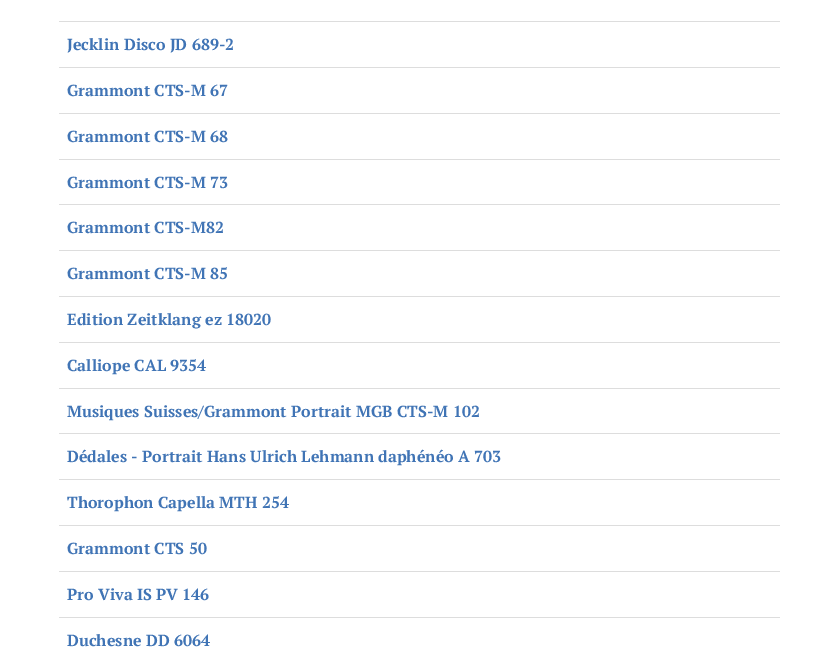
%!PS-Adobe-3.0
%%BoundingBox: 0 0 838 649
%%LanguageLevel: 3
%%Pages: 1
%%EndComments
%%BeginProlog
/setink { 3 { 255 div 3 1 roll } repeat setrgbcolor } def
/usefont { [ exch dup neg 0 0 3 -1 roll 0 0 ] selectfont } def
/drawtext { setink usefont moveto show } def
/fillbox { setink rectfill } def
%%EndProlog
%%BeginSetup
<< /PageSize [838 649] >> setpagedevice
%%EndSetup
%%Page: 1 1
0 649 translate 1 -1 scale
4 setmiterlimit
0 0 838 649 255 255 255 fillbox
59 21 721 1 221 221 221 fillbox
(Jecklin Disco JD 689-2) 67 50 /PTSerif-Bold 16 64 116 181 drawtext
59 67 721 1 221 221 221 fillbox
(Grammont CTS-M 67) 67 96 /PTSerif-Bold 16 64 116 181 drawtext
59 113 721 1 221 221 221 fillbox
(Grammont CTS-M 68) 67 142 /PTSerif-Bold 16 64 116 181 drawtext
59 159 721 1 221 221 221 fillbox
(Grammont CTS-M 73) 67 188 /PTSerif-Bold 16 64 116 181 drawtext
59 204 721 1 221 221 221 fillbox
(Grammont CTS-M82) 67 233 /PTSerif-Bold 16 64 116 181 drawtext
59 250 721 1 221 221 221 fillbox
(Grammont CTS-M 85) 67 279 /PTSerif-Bold 16 64 116 181 drawtext
59 296 721 1 221 221 221 fillbox
(Edition Zeitklang ez 18020) 67 325 /PTSerif-Bold 16 64 116 181 drawtext
59 342 721 1 221 221 221 fillbox
(Calliope CAL 9354) 67 371 /PTSerif-Bold 16 64 116 181 drawtext
59 388 721 1 221 221 221 fillbox
(Musiques Suisses/Grammont Portrait MGB CTS-M 102) 67 417 /PTSerif-Bold 16 64 116 181 drawtext
59 433 721 1 221 221 221 fillbox
(Dédales - Portrait Hans Ulrich Lehmann daphénéo A 703) 67 462 /PTSerif-Bold 16 64 116 181 drawtext
59 479 721 1 221 221 221 fillbox
(Thorophon Capella MTH 254) 67 508 /PTSerif-Bold 16 64 116 181 drawtext
59 525 721 1 221 221 221 fillbox
(Grammont CTS 50) 67 554 /PTSerif-Bold 16 64 116 181 drawtext
59 571 721 1 221 221 221 fillbox
(Pro Viva IS PV 146) 67 600 /PTSerif-Bold 16 64 116 181 drawtext
59 617 721 1 221 221 221 fillbox
(Duchesne DD 6064) 67 646 /PTSerif-Bold 16 64 116 181 drawtext
showpage
%%EOF
